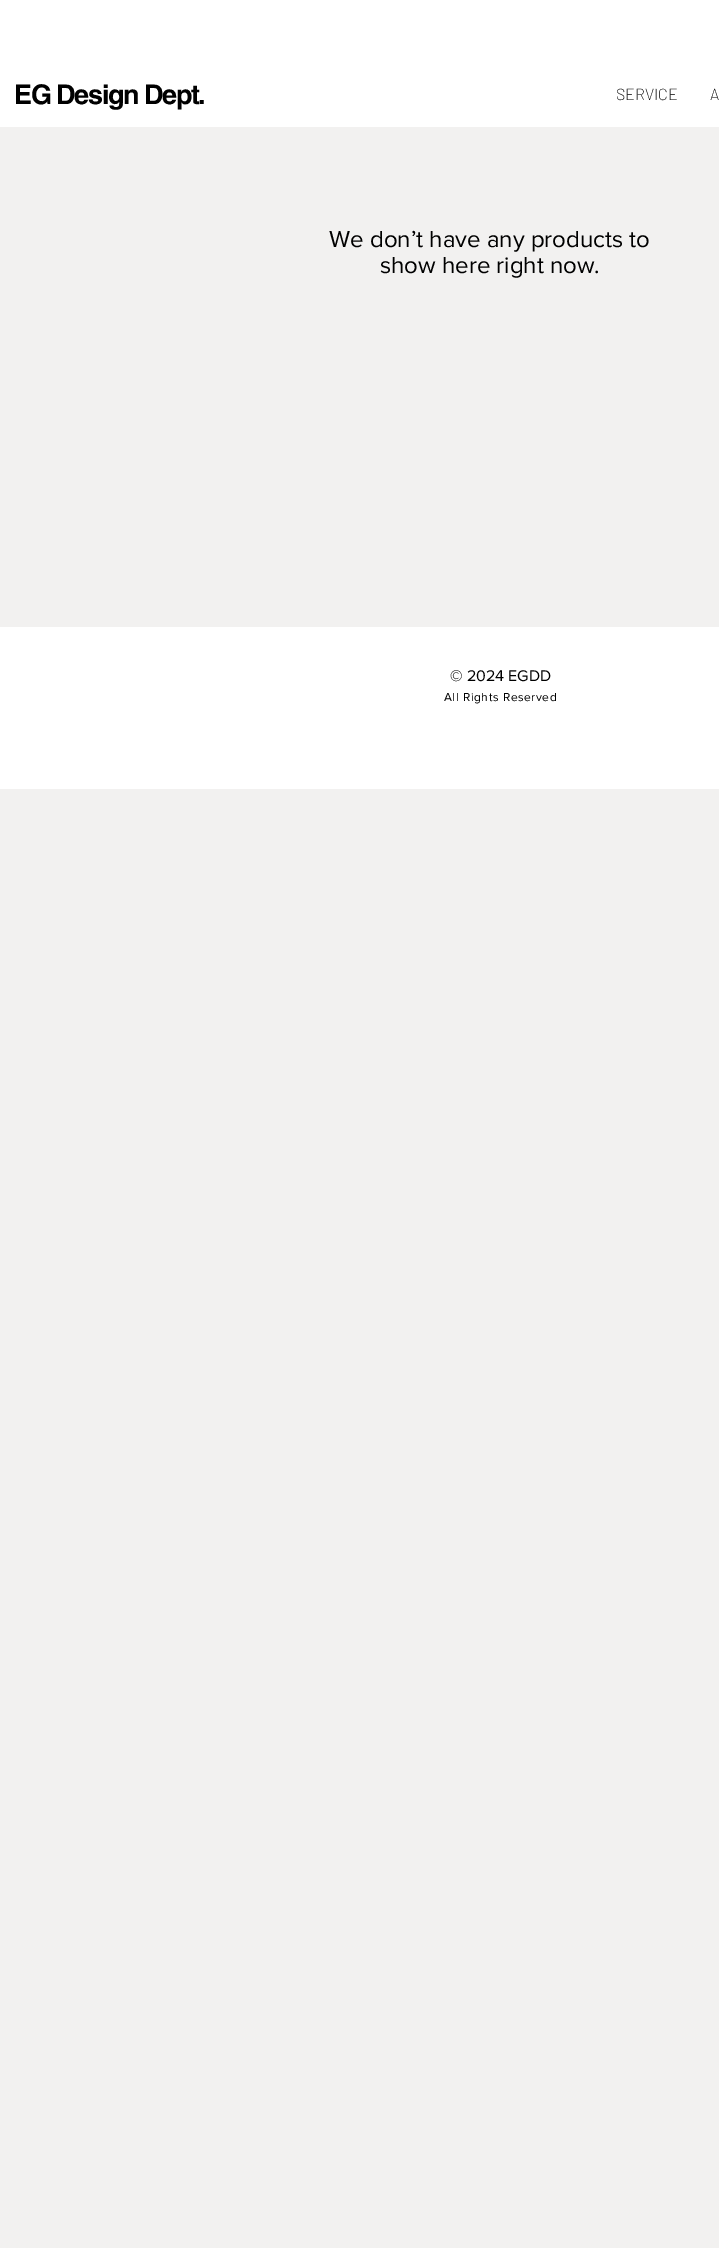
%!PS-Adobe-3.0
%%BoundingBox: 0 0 719 2248
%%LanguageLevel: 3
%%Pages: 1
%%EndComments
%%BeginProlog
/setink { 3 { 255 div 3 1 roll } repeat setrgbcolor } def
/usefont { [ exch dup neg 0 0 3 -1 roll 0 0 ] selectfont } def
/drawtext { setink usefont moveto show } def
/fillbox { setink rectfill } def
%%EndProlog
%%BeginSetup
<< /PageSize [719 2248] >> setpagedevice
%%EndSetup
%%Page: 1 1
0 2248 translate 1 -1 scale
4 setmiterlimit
0 0 719 2248 242 241 240 fillbox
0 0 719 127 255 255 255 fillbox
/helvetica-Bold 27 usefont
0 0 0 setink
14 104 moveto -1.4 0 (EG Design Dept.) ashow
(SERVICE) 616 100 /Barlow-ExtraLight 16 0 0 0 drawtext
(A) 710 100 /Barlow-ExtraLight 16 0 0 0 drawtext
(We don’t have any products to) 329 247 /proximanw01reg-Regular 24 0 0 0 drawtext
(show here right now.) 380 273 /proximanw01reg-Regular 24 0 0 0 drawtext
0 627 719 162 255 255 255 fillbox
(© 2024 EGDD) 450 681 /proximanw01reg-Regular 16 0 0 0 drawtext
/proximanw01reg-Regular 12 usefont
444 701 moveto 0.6 0 (All Rights Reserved) ashow
showpage
%%EOF
